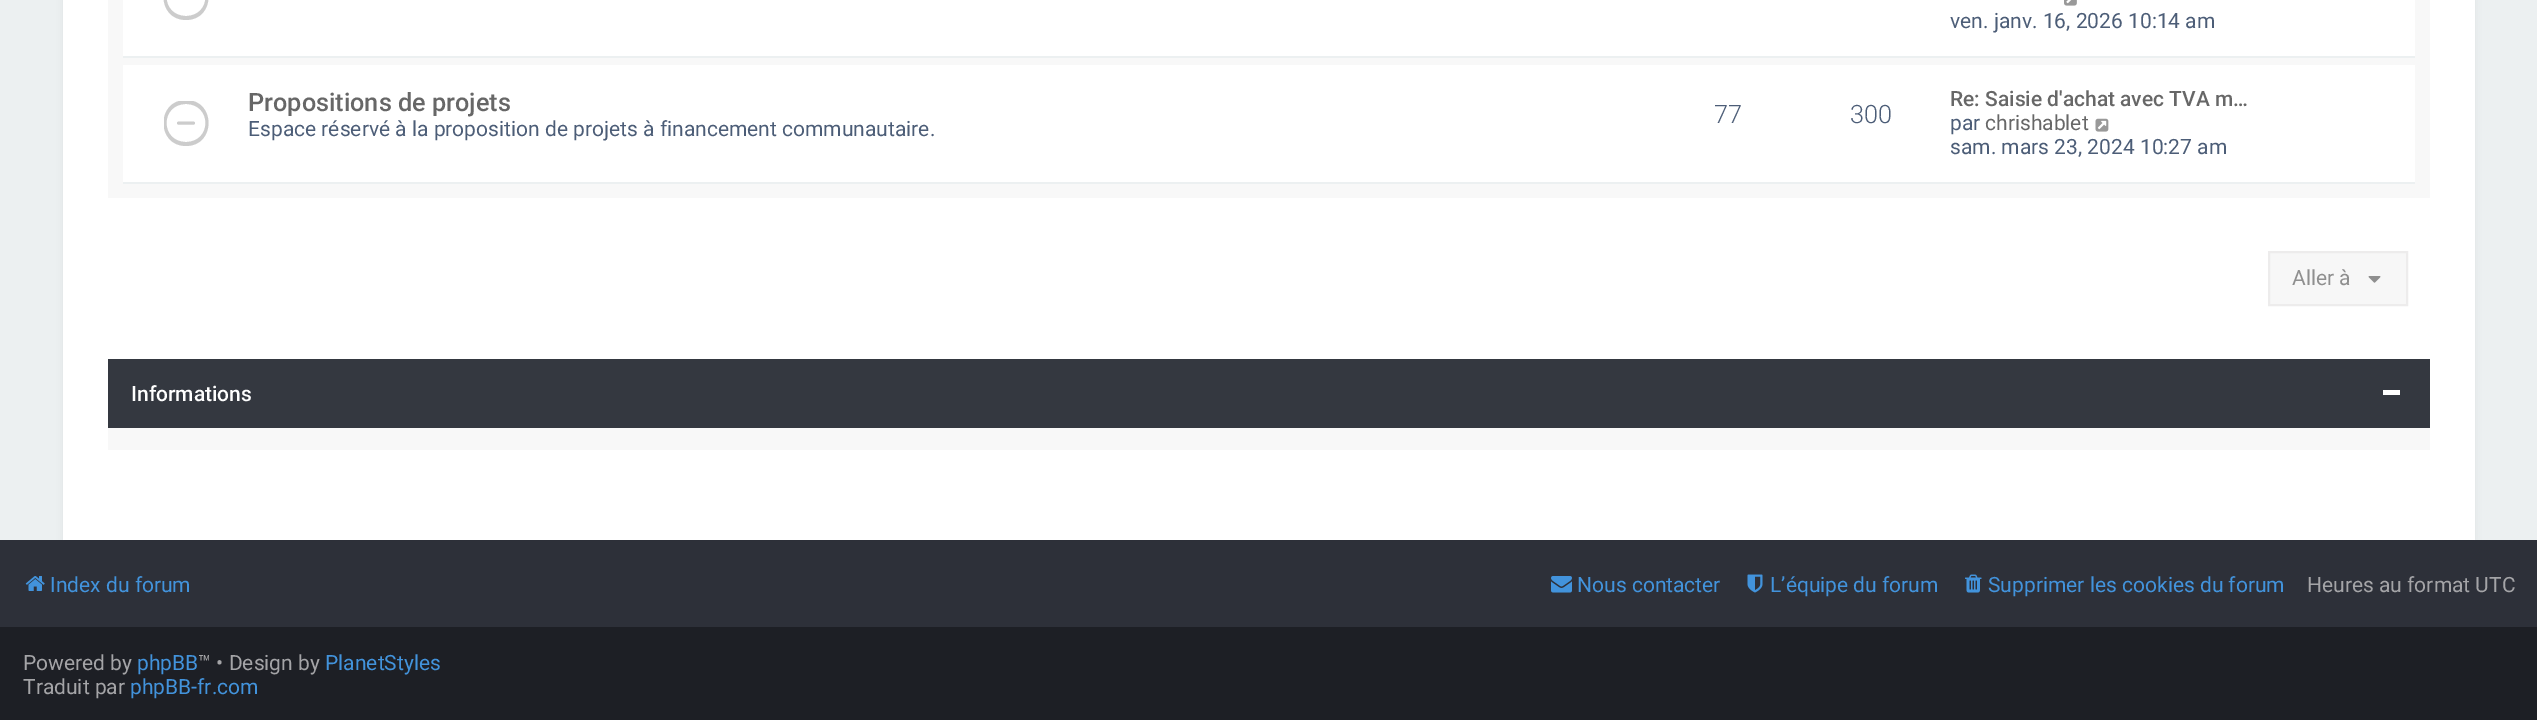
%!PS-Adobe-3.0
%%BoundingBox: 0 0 2537 720
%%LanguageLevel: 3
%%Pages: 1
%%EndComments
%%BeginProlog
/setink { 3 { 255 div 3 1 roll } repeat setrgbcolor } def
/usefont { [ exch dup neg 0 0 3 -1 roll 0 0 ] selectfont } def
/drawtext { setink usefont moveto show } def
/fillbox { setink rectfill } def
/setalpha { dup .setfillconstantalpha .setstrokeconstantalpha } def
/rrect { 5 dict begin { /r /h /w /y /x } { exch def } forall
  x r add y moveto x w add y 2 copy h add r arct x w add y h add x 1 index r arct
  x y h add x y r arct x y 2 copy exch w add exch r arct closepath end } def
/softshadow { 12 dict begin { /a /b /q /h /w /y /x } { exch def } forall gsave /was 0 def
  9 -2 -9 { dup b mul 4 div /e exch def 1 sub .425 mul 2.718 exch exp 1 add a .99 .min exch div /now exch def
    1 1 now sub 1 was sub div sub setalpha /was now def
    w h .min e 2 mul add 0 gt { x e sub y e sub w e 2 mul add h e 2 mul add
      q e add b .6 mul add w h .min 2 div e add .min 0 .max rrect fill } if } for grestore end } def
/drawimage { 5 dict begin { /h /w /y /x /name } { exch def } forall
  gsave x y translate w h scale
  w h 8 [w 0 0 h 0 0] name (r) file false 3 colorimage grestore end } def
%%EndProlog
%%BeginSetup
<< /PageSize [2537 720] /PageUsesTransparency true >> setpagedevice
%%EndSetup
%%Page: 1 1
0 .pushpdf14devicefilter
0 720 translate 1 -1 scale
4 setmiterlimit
0 0 2537 720 236 240 241 fillbox
0 540 2537 87 45 48 57 fillbox
0 0 0 setink
63 -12 2412 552 0 4 0.05 softshadow
63 0 2412 540 255 255 255 fillbox
108 0 2322 198 248 248 248 fillbox
123 0 2292 56 255 255 255 fillbox
123 56 2292 2 236 240 241 fillbox
204 204 204 setink
186 -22 moveto 212 -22 212 16 186 16 curveto 160 16 160 -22 186 -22 curveto 186 -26 moveto 156 -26 156 20 186 20 curveto 216 20 216 -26 186 -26 curveto closepath fill
(assets/img1.rgb) 2064 0 13 6 drawimage
(ven. janv. 16, 2026 10:14 am) 1950 28 /Roboto-Regular 21 76 93 119 drawtext
123 65 2292 117 255 255 255 fillbox
123 182 2292 2 236 240 241 fillbox
gsave
164 101 45 45 rectclip
204 204 204 setink
186 104 moveto 212 104 212 142 186 142 curveto 160 142 160 104 186 104 curveto 186 100 moveto 156 100 156 146 186 146 curveto 216 146 216 100 186 100 curveto closepath fill
grestore
204 204 204 setink
3 setlinewidth
1 setlinecap
178.5 123 moveto 193.5 123 lineto stroke
(Propositions de projets) 248 111 /Roboto-Medium 25.25 103 103 103 drawtext
(Espace réservé à la proposition de projets à financement communautaire.) 248 136 /Roboto-Regular 21 76 93 119 drawtext
(77) 1714 123 /Roboto-Light 25.25 76 93 119 drawtext
(300) 1850 123 /Roboto-Light 25.25 76 93 119 drawtext
(Re: Saisie d'achat avec TVA m…) 1950 106 /Roboto-Medium 21 103 103 103 drawtext
(par) 1950 130 /Roboto-Regular 21 76 93 119 drawtext
(chrishablet) 1985 130 /Roboto-Regular 21 103 103 103 drawtext
(assets/img2.rgb) 2095 118 14 14 drawimage
(sam. mars 23, 2024 10:27 am) 1950 154 /Roboto-Regular 21 76 93 119 drawtext
247 247 247 setink
2269 252 moveto 2407 252 lineto 2407 305 lineto 2269 305 lineto closepath gsave fill grestore
237 236 236 setink
2 setlinewidth
0 setlinecap
stroke
(Aller à) 2292 285 /Roboto-Regular 21 143 143 143 drawtext
(assets/img3.rgb) 2368 276 13 7 drawimage
108 428 2322 22 248 248 248 fillbox
108 359 2322 69 52 56 64 fillbox
(Informations) 131 401 /Roboto-Medium 21 255 255 255 drawtext
2383 390 17 5 255 255 255 fillbox
(assets/img4.rgb) 25 576 20 15 drawimage
(Index du forum) 50 592 /Roboto-Regular 21 66 147 220 drawtext
(assets/img5.rgb) 1551 576 21 17 drawimage
(Nous contacter) 1577 592 /Roboto-Regular 21 66 147 220 drawtext
(assets/img6.rgb) 1747 574 16 19 drawimage
(L’équipe du forum) 1770 592 /Roboto-Regular 21 66 147 220 drawtext
(assets/img7.rgb) 1965 574 17 19 drawimage
(Supprimer les cookies du forum) 1988 592 /Roboto-Regular 21 66 147 220 drawtext
(Heures au format UTC) 2307 592 /Roboto-Regular 21 164 164 167 drawtext
0 627 2537 93 29 31 37 fillbox
(Powered by) 23 670 /Roboto-Regular 21 164 164 167 drawtext
(phpBB) 137 670 /Roboto-Regular 21 66 147 220 drawtext
(™ • Design by) 198 670 /Roboto-Regular 21 164 164 167 drawtext
(PlanetStyles) 325 670 /Roboto-Regular 21 66 147 220 drawtext
(Traduit par) 23 694 /Roboto-Regular 21 164 164 167 drawtext
(phpBB-fr.com) 130 694 /Roboto-Regular 21 66 147 220 drawtext
.poppdf14devicefilter showpage
%%EOF
